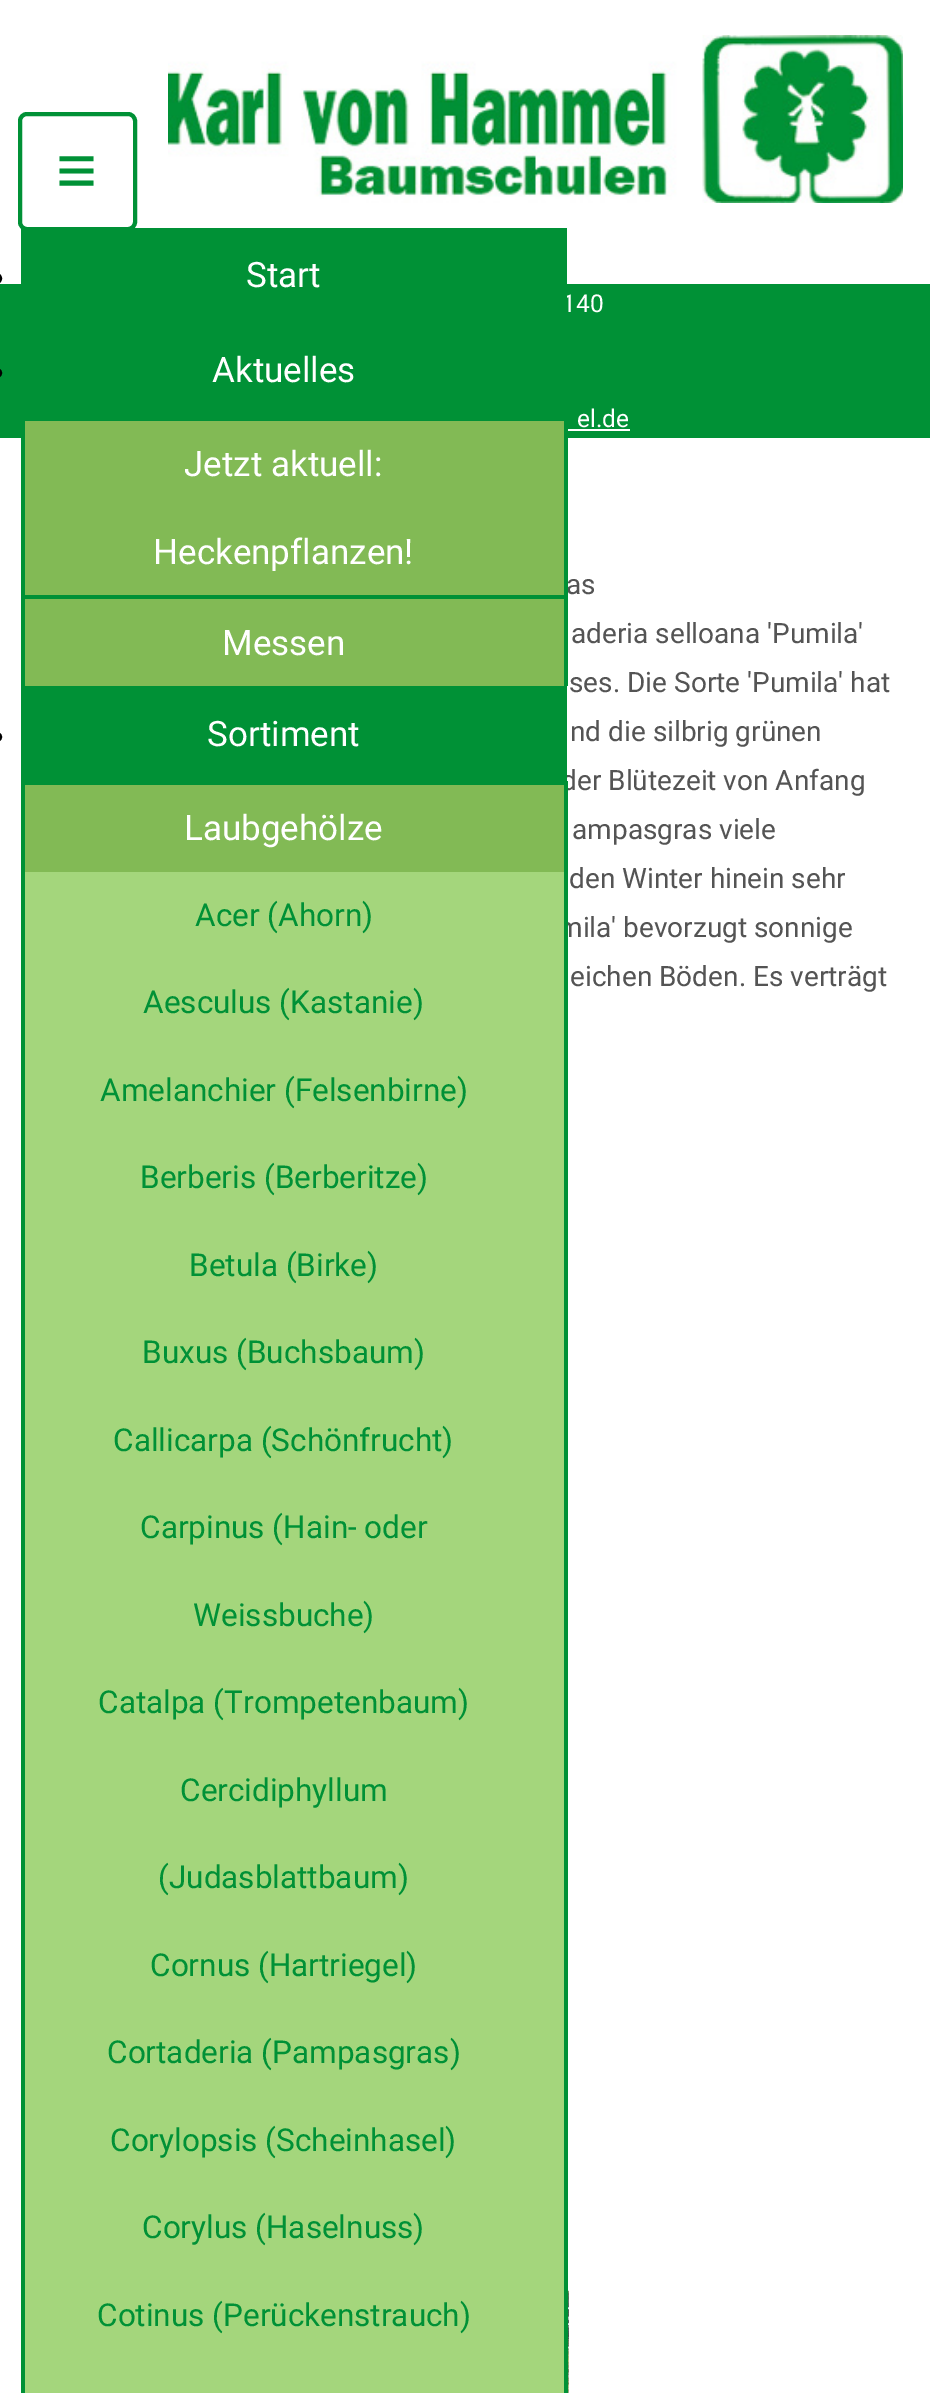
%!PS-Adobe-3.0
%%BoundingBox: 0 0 930 2393
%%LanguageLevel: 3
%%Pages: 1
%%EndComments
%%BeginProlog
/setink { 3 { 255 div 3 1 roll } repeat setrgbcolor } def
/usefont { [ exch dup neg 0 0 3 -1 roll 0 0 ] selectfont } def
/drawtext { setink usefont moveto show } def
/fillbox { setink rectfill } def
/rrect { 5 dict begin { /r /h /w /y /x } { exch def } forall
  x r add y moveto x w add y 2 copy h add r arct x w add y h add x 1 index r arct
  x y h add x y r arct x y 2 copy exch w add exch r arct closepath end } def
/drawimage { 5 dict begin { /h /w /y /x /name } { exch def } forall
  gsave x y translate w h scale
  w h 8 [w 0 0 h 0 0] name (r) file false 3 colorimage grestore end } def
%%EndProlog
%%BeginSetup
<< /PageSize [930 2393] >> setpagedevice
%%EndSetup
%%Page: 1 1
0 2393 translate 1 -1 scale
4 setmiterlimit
0 0 930 2393 255 255 255 fillbox
(assets/img1.rgb) 168 35 735 168 drawimage
0 145 54 setink
4 setlinewidth
20 114 115 115 7 rrect stroke
(≡) 56 194 /LiberationSans-Regular 70 0 145 54 drawtext
0 0 0 setink
2 setlinewidth
-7 274 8 9 4.5 rrect stroke
0 284 930 154 0 145 54 fillbox
(140) 562 312 /Roboto-Regular 24.5 255 255 255 drawtext
21 228 546 71 0 145 54 fillbox
(Start) 246 287 /Roboto-Regular 35 255 255 255 drawtext
0 0 0 setink
-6 369 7 8 4 rrect stroke
(Aktuelles) 212 382 /Roboto-Regular 35 255 255 255 drawtext
25 421 539 174 130 186 85 fillbox
(as) 566 594 /Roboto-Regular 28 84 84 84 drawtext
564 438 4 157 0 145 54 fillbox
21 438 4 157 0 145 54 fillbox
(Jetzt aktuell:) 184 476 /Roboto-Regular 35 255 255 255 drawtext
(Heckenpflanzen!) 153 564 /Roboto-Regular 35 255 255 255 drawtext
25 599 539 87 130 186 85 fillbox
21 595 546 4 0 145 54 fillbox
564 595 4 91 0 145 54 fillbox
21 595 4 91 0 145 54 fillbox
(Messen) 222 655 /Roboto-Regular 35 255 255 255 drawtext
0 0 0 setink
-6 733 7 8 4 rrect stroke
(der Blütezeit von Anfang) 561 790 /Roboto-Regular 28 84 84 84 drawtext
21 686 546 99 0 145 54 fillbox
(Sortiment) 207 746 /Roboto-Regular 35 255 255 255 drawtext
25 785 539 87 130 186 85 fillbox
(mila' bevorzugt sonnige) 558 937 /Roboto-Regular 28 84 84 84 drawtext
564 781 4 1612 0 145 54 fillbox
21 781 4 1612 0 145 54 fillbox
(Laubgehölze) 184 840 /Roboto-Regular 35 255 255 255 drawtext
25 872 539 1521 164 214 124 fillbox
(Acer \(Ahorn\)) 195 926 /Roboto-Regular 31.5 0 145 54 drawtext
(Aesculus \(Kastanie\)) 143 1013 /Roboto-Regular 31.5 0 145 54 drawtext
(Amelanchier \(Felsenbirne\)) 100 1101 /Roboto-Regular 31.5 0 145 54 drawtext
(Berberis \(Berberitze\)) 140 1188 /Roboto-Regular 31.5 0 145 54 drawtext
(Betula \(Birke\)) 189 1276 /Roboto-Regular 31.5 0 145 54 drawtext
(Buxus \(Buchsbaum\)) 142 1363 /Roboto-Regular 31.5 0 145 54 drawtext
(Callicarpa \(Schönfrucht\)) 113 1451 /Roboto-Regular 31.5 0 145 54 drawtext
(Carpinus \(Hain- oder) 140 1538 /Roboto-Regular 31.5 0 145 54 drawtext
(Weissbuche\)) 193 1626 /Roboto-Regular 31.5 0 145 54 drawtext
(Catalpa \(Trompetenbaum\)) 98 1713 /Roboto-Regular 31.5 0 145 54 drawtext
(Cercidiphyllum) 180 1801 /Roboto-Regular 31.5 0 145 54 drawtext
(\(Judasblattbaum\)) 158 1888 /Roboto-Regular 31.5 0 145 54 drawtext
(Cornus \(Hartriegel\)) 150 1976 /Roboto-Regular 31.5 0 145 54 drawtext
(Cortaderia \(Pampasgras\)) 107 2063 /Roboto-Regular 31.5 0 145 54 drawtext
(Corylopsis \(Scheinhasel\)) 110 2151 /Roboto-Regular 31.5 0 145 54 drawtext
(Corylus \(Haselnuss\)) 142 2238 /Roboto-Regular 31.5 0 145 54 drawtext
(Cotinus \(Perückenstrauch\)) 97 2326 /Roboto-Regular 31.5 0 145 54 drawtext
(aderia selloana 'Pumila') 571 643 /Roboto-Regular 28 84 84 84 drawtext
(ses. Die Sorte 'Pumila' hat) 569 692 /Roboto-Regular 28 84 84 84 drawtext
(nd die silbrig grünen) 570 741 /Roboto-Regular 28 84 84 84 drawtext
(ampasgras viele) 572 839 /Roboto-Regular 28 84 84 84 drawtext
(den Winter hinein sehr) 569 888 /Roboto-Regular 28 84 84 84 drawtext
(eichen Böden. Es verträgt) 570 986 /Roboto-Regular 28 84 84 84 drawtext
(assets/img2.rgb) 568 2290 1 103 drawimage
(el.de) 577 427 /Roboto-Regular 24.5 255 255 255 drawtext
568 429 62 2 255 255 255 fillbox
showpage
%%EOF
